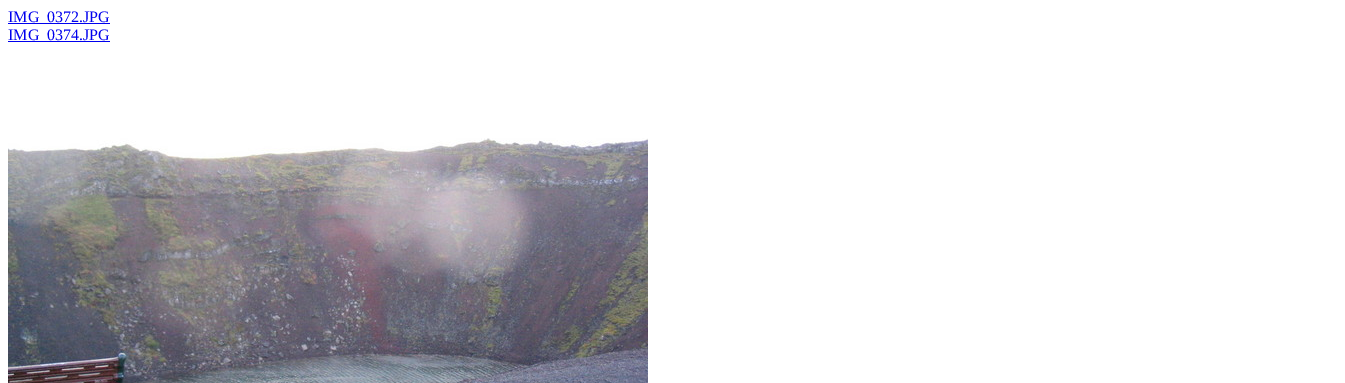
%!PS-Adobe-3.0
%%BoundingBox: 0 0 1345 383
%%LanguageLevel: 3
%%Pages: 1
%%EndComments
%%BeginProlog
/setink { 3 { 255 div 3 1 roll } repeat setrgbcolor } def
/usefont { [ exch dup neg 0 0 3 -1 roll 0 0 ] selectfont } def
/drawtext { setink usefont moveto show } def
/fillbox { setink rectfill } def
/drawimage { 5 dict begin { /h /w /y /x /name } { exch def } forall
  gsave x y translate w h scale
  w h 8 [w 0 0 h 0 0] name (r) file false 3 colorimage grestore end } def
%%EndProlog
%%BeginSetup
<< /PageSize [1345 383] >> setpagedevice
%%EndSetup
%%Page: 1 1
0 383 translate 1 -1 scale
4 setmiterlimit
0 0 1345 383 255 255 255 fillbox
8 23 102 1 0 0 238 fillbox
(IMG_0372.JPG) 8 22 /LiberationSerif-Regular 16 0 0 238 drawtext
8 41 102 1 0 0 238 fillbox
(IMG_0374.JPG) 8 40 /LiberationSerif-Regular 16 0 0 238 drawtext
(assets/img1.rgb) 8 138 640 245 drawimage
showpage
%%EOF
